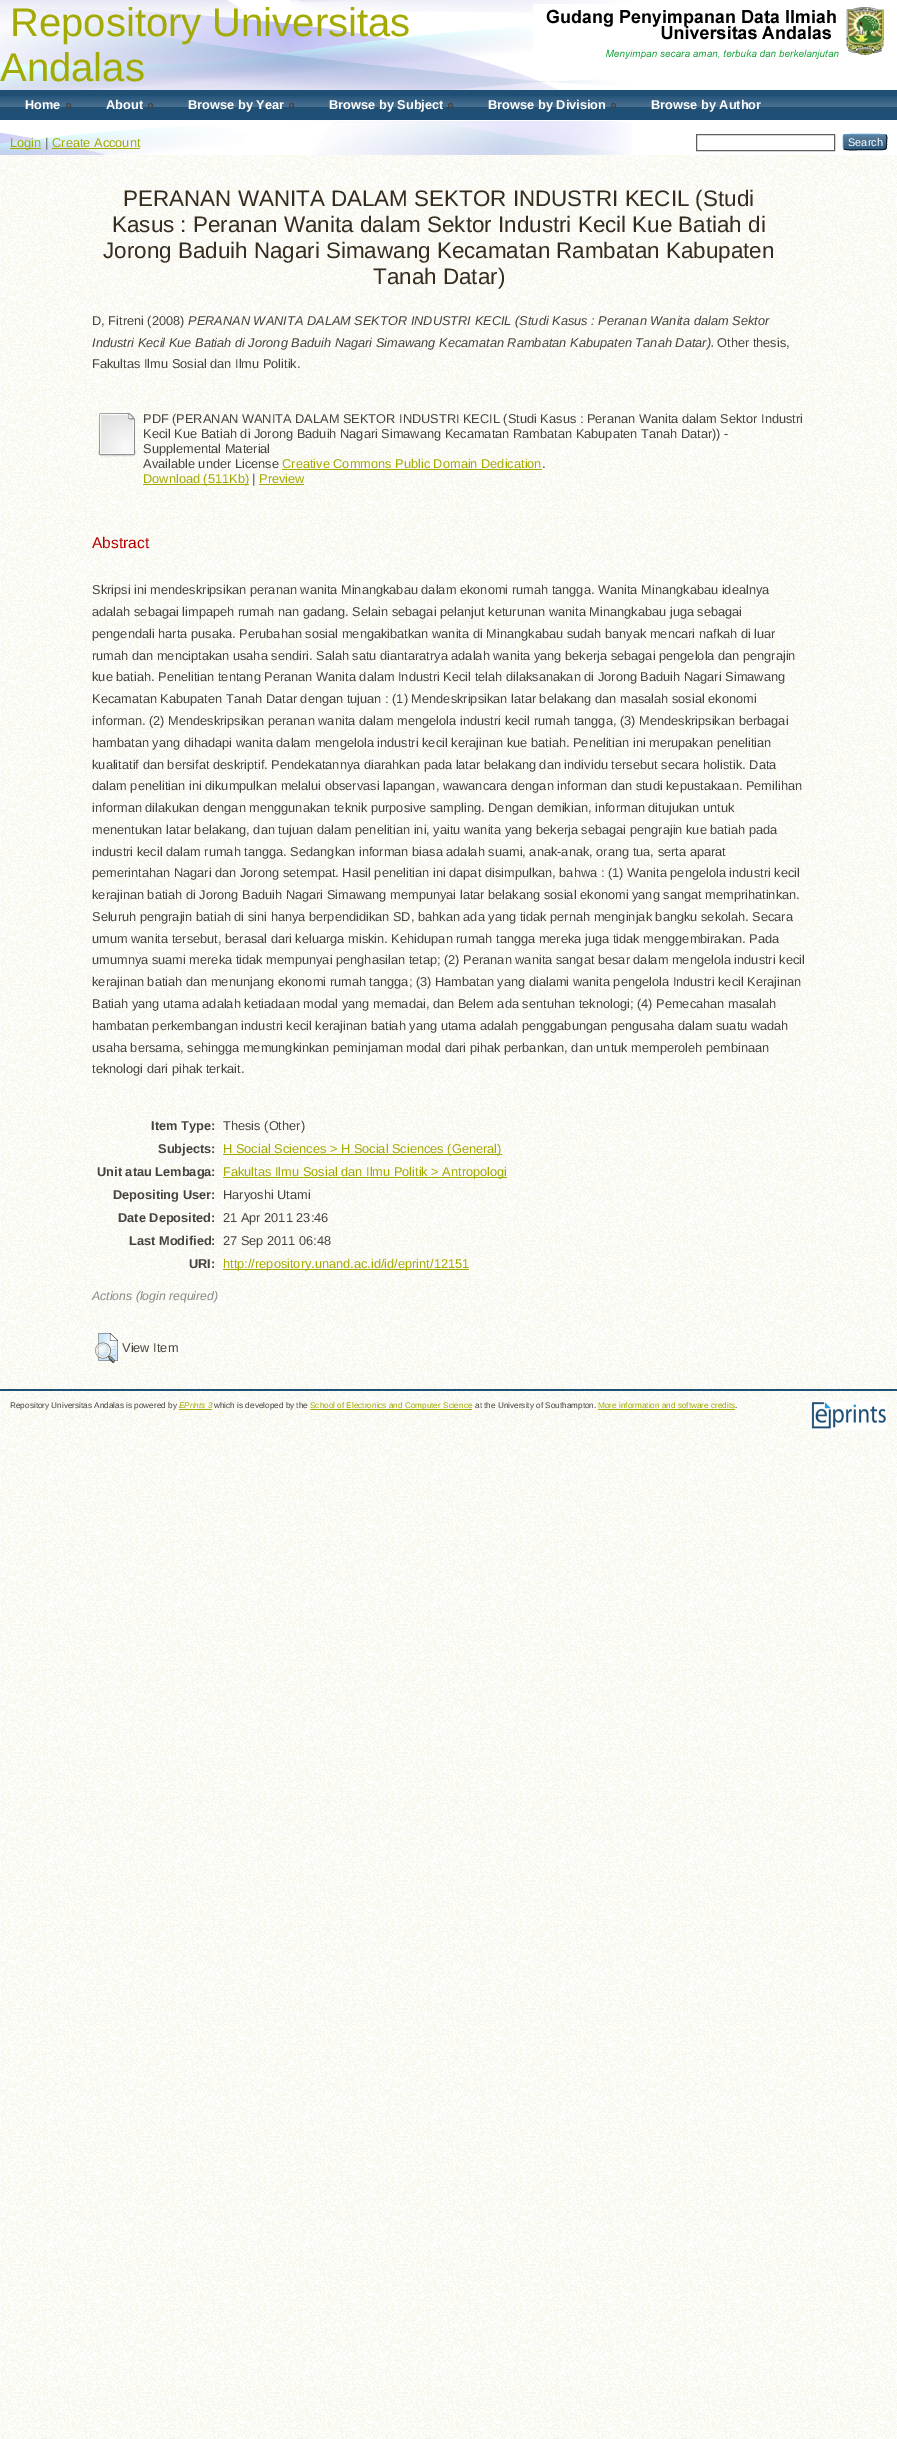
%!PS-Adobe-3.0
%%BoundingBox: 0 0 897 2439
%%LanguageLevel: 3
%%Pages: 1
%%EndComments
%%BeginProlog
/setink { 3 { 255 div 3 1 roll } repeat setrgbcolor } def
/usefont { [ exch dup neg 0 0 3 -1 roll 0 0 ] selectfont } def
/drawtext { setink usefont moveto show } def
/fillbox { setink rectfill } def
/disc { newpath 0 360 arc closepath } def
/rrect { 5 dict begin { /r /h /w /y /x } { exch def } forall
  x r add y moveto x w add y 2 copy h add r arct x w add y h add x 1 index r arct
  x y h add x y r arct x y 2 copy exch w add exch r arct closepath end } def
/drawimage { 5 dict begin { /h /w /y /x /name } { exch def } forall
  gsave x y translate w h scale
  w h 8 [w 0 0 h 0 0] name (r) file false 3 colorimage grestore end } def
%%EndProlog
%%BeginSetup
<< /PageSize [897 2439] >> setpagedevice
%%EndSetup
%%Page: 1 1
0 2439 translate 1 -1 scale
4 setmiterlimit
0 0 897 2439 255 255 255 fillbox
(assets/img1.rgb) 0 155 897 2284 drawimage
(assets/img2.rgb) 0 0 632 155 drawimage
(Repository Universitas) 10 36 /LiberationSans-Regular 40 164 170 4 drawtext
(Andalas) 0 81 /LiberationSans-Regular 40 164 170 4 drawtext
(assets/img3.rgb) 533 4 351 55 drawimage
0 90 897 30 32 79 118 fillbox
(assets/img4.rgb) 0 96 897 11 drawimage
333 120 281 1 255 255 255 fillbox
(Home) 25 109 /LiberationSans-Bold 12.8 255 255 255 drawtext
71 67 63 setink
68.5 105.5 2 disc stroke
(About) 106 109 /LiberationSans-Bold 12.8 255 255 255 drawtext
71 67 63 setink
150.5 105.5 2 disc stroke
(Browse by Year) 188 109 /LiberationSans-Bold 12.8 255 255 255 drawtext
71 67 63 setink
291.5 105.5 2 disc stroke
(Browse by Subject) 329 109 /LiberationSans-Bold 12.8 255 255 255 drawtext
71 67 63 setink
450.5 105.5 2 disc stroke
(Browse by Division) 488 109 /LiberationSans-Bold 12.8 255 255 255 drawtext
71 67 63 setink
613.5 105.5 2 disc stroke
(Browse by Author) 651 109 /LiberationSans-Bold 12.8 255 255 255 drawtext
10 148 31 1 164 170 4 fillbox
(Login) 10 147 /LiberationSans-Regular 12.8 164 170 4 drawtext
(|) 45 147 /LiberationSans-Regular 12.8 96 96 96 drawtext
(Create Account) 52 147 /LiberationSans-Regular 12.8 164 170 4 drawtext
52 148 88 1 164 170 4 fillbox
96 96 96 setink
696.5 134.5 138 16 rectstroke
31 79 118 setink
843 134 44 16 3 rrect fill
(assets/img5.rgb) 843 134 44 16 drawimage
91 151 199 setink
844 135 moveto 845.5 134 884.5 134 886 135 curveto stroke
13 33 49 setink
886 135 moveto 887.5 137 886.5 140 886.5 142 curveto 886.5 150.5 887 149.5 877.5 149.5 curveto 865 149.5 lineto 862 149.5 846 150.5 844 149 curveto stroke
82 135 179 setink
844 149 moveto 843 147.5 843.5 143.5 843.5 142 curveto 843.5 140.5 843 136.5 844 135 curveto stroke
(Search) 848 146 /LiberationSans-Regular 11 255 255 255 drawtext
(PERANAN WANITA DALAM SEKTOR INDUSTRI KECIL \(Studi) 123 206 /LiberationSans-Regular 22.4 54 44 32 drawtext
(Kasus : Peranan Wanita dalam Sektor Industri Kecil Kue Batiah di) 112 232 /LiberationSans-Regular 22.4 54 44 32 drawtext
(Jorong Baduih Nagari Simawang Kecamatan Rambatan Kabupaten) 103 258 /LiberationSans-Regular 22.4 54 44 32 drawtext
(Tanah Datar\)) 373 284 /LiberationSans-Regular 22.4 54 44 32 drawtext
(D, Fitreni \(2008\)) 92 325 /LiberationSans-Regular 12.8 71 67 63 drawtext
(PERANAN WANITA DALAM SEKTOR INDUSTRI KECIL \(Studi Kasus : Peranan Wanita dalam Sektor) 188 325 /LiberationSans-Italic 12.8 71 67 63 drawtext
(Industri Kecil Kue Batiah di Jorong Baduih Nagari Simawang Kecamatan Rambatan Kabupaten Tanah Datar\).) 92 347 /LiberationSans-Italic 12.8 71 67 63 drawtext
(Other thesis,) 717 347 /LiberationSans-Regular 12.8 71 67 63 drawtext
(Fakultas Ilmu Sosial dan Ilmu Politik.) 92 368 /LiberationSans-Regular 12.8 71 67 63 drawtext
(assets/img6.rgb) 97 413 40 44 drawimage
(PDF \(PERANAN WANITA DALAM SEKTOR INDUSTRI KECIL \(Studi Kasus : Peranan Wanita dalam Sektor Industri) 143 423 /LiberationSans-Regular 12.8 71 67 63 drawtext
(Kecil Kue Batiah di Jorong Baduih Nagari Simawang Kecamatan Rambatan Kabupaten Tanah Datar\)\) -) 143 438 /LiberationSans-Regular 12.8 71 67 63 drawtext
(Supplemental Material) 143 453 /LiberationSans-Regular 12.8 71 67 63 drawtext
(Available under License) 143 468 /LiberationSans-Regular 12.8 71 67 63 drawtext
(Creative Commons Public Domain Dedication) 282 468 /LiberationSans-Regular 12.8 164 170 4 drawtext
(.) 542 468 /LiberationSans-Regular 12.8 71 67 63 drawtext
282 469 260 1 164 170 4 fillbox
143 484 106 1 164 170 4 fillbox
(Download \(511Kb\)) 143 483 /LiberationSans-Regular 12.8 164 170 4 drawtext
(|) 252 483 /LiberationSans-Regular 12.8 71 67 63 drawtext
(Preview) 259 483 /LiberationSans-Regular 12.8 164 170 4 drawtext
259 484 45 1 164 170 4 fillbox
(Abstract) 92 548 /LiberationSans-Regular 15.5 182 0 0 drawtext
(Skripsi ini mendeskripsikan peranan wanita Minangkabau dalam ekonomi rumah tangga. Wanita Minangkabau idealnya) 92 594 /LiberationSans-Regular 12.8 71 67 63 drawtext
(adalah sebagai limpapeh rumah nan gadang. Selain sebagai pelanjut keturunan wanita Minangkabau juga sebagai) 92 616 /LiberationSans-Regular 12.8 71 67 63 drawtext
(pengendali harta pusaka. Perubahan sosial mengakibatkan wanita di Minangkabau sudah banyak mencari nafkah di luar) 92 638 /LiberationSans-Regular 12.8 71 67 63 drawtext
(rumah dan menciptakan usaha sendiri. Salah satu diantaratrya adalah wanita yang bekerja sebagai pengelola dan pengrajin) 92 660 /LiberationSans-Regular 12.8 71 67 63 drawtext
(kue batiah. Penelitian tentang Peranan Wanita dalam Industri Kecil telah dilaksanakan di Jorong Baduih Nagari Simawang) 92 681 /LiberationSans-Regular 12.8 71 67 63 drawtext
(Kecamatan Kabupaten Tanah Datar dengan tujuan : \(1\) Mendeskripsikan latar belakang dan masalah sosial ekonomi) 92 703 /LiberationSans-Regular 12.8 71 67 63 drawtext
(informan. \(2\) Mendeskripsikan peranan wanita dalam mengelola industri kecil rumah tangga, \(3\) Mendeskripsikan berbagai) 92 725 /LiberationSans-Regular 12.8 71 67 63 drawtext
(hambatan yang dihadapi wanita dalam mengelola industri kecil kerajinan kue batiah. Penelitian ini merupakan penelitian) 92 747 /LiberationSans-Regular 12.8 71 67 63 drawtext
(kualitatif dan bersifat deskriptif. Pendekatannya diarahkan pada latar belakang dan individu tersebut secara holistik. Data) 92 769 /LiberationSans-Regular 12.8 71 67 63 drawtext
(dalam penelitian ini dikumpulkan melalui observasi lapangan, wawancara dengan informan dan studi kepustakaan. Pemilihan) 92 790 /LiberationSans-Regular 12.8 71 67 63 drawtext
(informan dilakukan dengan menggunakan teknik purposive sampling. Dengan demikian, informan ditujukan untuk) 92 812 /LiberationSans-Regular 12.8 71 67 63 drawtext
(menentukan latar belakang, dan tujuan dalam penelitian ini, yaitu wanita yang bekerja sebagai pengrajin kue batiah pada) 92 834 /LiberationSans-Regular 12.8 71 67 63 drawtext
(industri kecil dalam rumah tangga. Sedangkan informan biasa adalah suami, anak-anak, orang tua, serta aparat) 92 856 /LiberationSans-Regular 12.8 71 67 63 drawtext
(pemerintahan Nagari dan Jorong setempat. Hasil penelitian ini dapat disimpulkan, bahwa : \(1\) Wanita pengelola industri kecil) 92 877 /LiberationSans-Regular 12.8 71 67 63 drawtext
(kerajinan batiah di Jorong Baduih Nagari Simawang mempunyai latar belakang sosial ekonomi yang sangat memprihatinkan.) 92 899 /LiberationSans-Regular 12.8 71 67 63 drawtext
(Seluruh pengrajin batiah di sini hanya berpendidikan SD, bahkan ada yang tidak pernah menginjak bangku sekolah. Secara) 92 921 /LiberationSans-Regular 12.8 71 67 63 drawtext
(umum wanita tersebut, berasal dari keluarga miskin. Kehidupan rumah tangga mereka juga tidak menggembirakan. Pada) 92 943 /LiberationSans-Regular 12.8 71 67 63 drawtext
(umumnya suami mereka tidak mempunyai penghasilan tetap; \(2\) Peranan wanita sangat besar dalam mengelola industri kecil) 92 964 /LiberationSans-Regular 12.8 71 67 63 drawtext
(kerajinan batiah dan menunjang ekonomi rumah tangga; \(3\) Hambatan yang dialami wanita pengelola Industri kecil Kerajinan) 92 986 /LiberationSans-Regular 12.8 71 67 63 drawtext
(Batiah yang utama adalah ketiadaan modal yang memadai, dan Belem ada sentuhan teknologi; \(4\) Pemecahan masalah) 92 1008 /LiberationSans-Regular 12.8 71 67 63 drawtext
(hambatan perkembangan industri kecil kerajinan batiah yang utama adalah penggabungan pengusaha dalam suatu wadah) 92 1030 /LiberationSans-Regular 12.8 71 67 63 drawtext
(usaha bersama, sehingga memungkinkan peminjaman modal dari pihak perbankan, dan untuk memperoleh pembinaan) 92 1052 /LiberationSans-Regular 12.8 71 67 63 drawtext
(teknologi dari pihak terkait.) 92 1073 /LiberationSans-Regular 12.8 71 67 63 drawtext
(Item Type:) 151 1130 /LiberationSans-Bold 12.8 71 67 63 drawtext
(Thesis \(Other\)) 223 1130 /LiberationSans-Regular 12.8 71 67 63 drawtext
(Subjects:) 158 1153 /LiberationSans-Bold 12.8 71 67 63 drawtext
223 1154 279 1 164 170 4 fillbox
(H Social Sciences > H Social Sciences \(General\)) 223 1153 /LiberationSans-Regular 12.8 164 170 4 drawtext
(Unit atau Lembaga:) 97 1176 /LiberationSans-Bold 12.8 71 67 63 drawtext
223 1177 284 1 164 170 4 fillbox
(Fakultas Ilmu Sosial dan Ilmu Politik > Antropologi) 223 1176 /LiberationSans-Regular 12.8 164 170 4 drawtext
(Depositing User:) 113 1199 /LiberationSans-Bold 12.8 71 67 63 drawtext
(Haryoshi Utami) 223 1199 /LiberationSans-Regular 12.8 71 67 63 drawtext
(Date Deposited:) 118 1222 /LiberationSans-Bold 12.8 71 67 63 drawtext
(21 Apr 2011 23:46) 223 1222 /LiberationSans-Regular 12.8 71 67 63 drawtext
(Last Modified:) 129 1245 /LiberationSans-Bold 12.8 71 67 63 drawtext
(27 Sep 2011 06:48) 223 1245 /LiberationSans-Regular 12.8 71 67 63 drawtext
(URI:) 189 1268 /LiberationSans-Bold 12.8 71 67 63 drawtext
223 1269 246 1 164 170 4 fillbox
(http://repository.unand.ac.id/id/eprint/12151) 223 1268 /LiberationSans-Regular 12.8 164 170 4 drawtext
(Actions \(login required\)) 92 1300 /LiberationSans-Italic 12.25 136 136 136 drawtext
(assets/img7.rgb) 95 1333 23 30 drawimage
(View Item) 122 1352 /LiberationSans-Regular 12.8 71 67 63 drawtext
0 1389 897 2 32 79 118 fillbox
(Repository Universitas Andalas is powered by) 10 1408 /LiberationSans-Regular 8.2 71 67 63 drawtext
(EPrints 3) 179 1408 /LiberationSans-Italic 8.2 164 170 4 drawtext
179 1409 33 1 164 170 4 fillbox
(which is developed by the) 214 1408 /LiberationSans-Regular 8.2 71 67 63 drawtext
310 1409 162 1 164 170 4 fillbox
(School of Electronics and Computer Science) 310 1408 /LiberationSans-Regular 8.2 164 170 4 drawtext
(at the University of Southampton.) 475 1408 /LiberationSans-Regular 8.2 71 67 63 drawtext
(More information and software credits) 598 1408 /LiberationSans-Regular 8.2 164 170 4 drawtext
598 1409 137 1 164 170 4 fillbox
(.) 735 1408 /LiberationSans-Regular 8.2 71 67 63 drawtext
(assets/img8.rgb) 810 1401 77 29 drawimage
showpage
%%EOF
